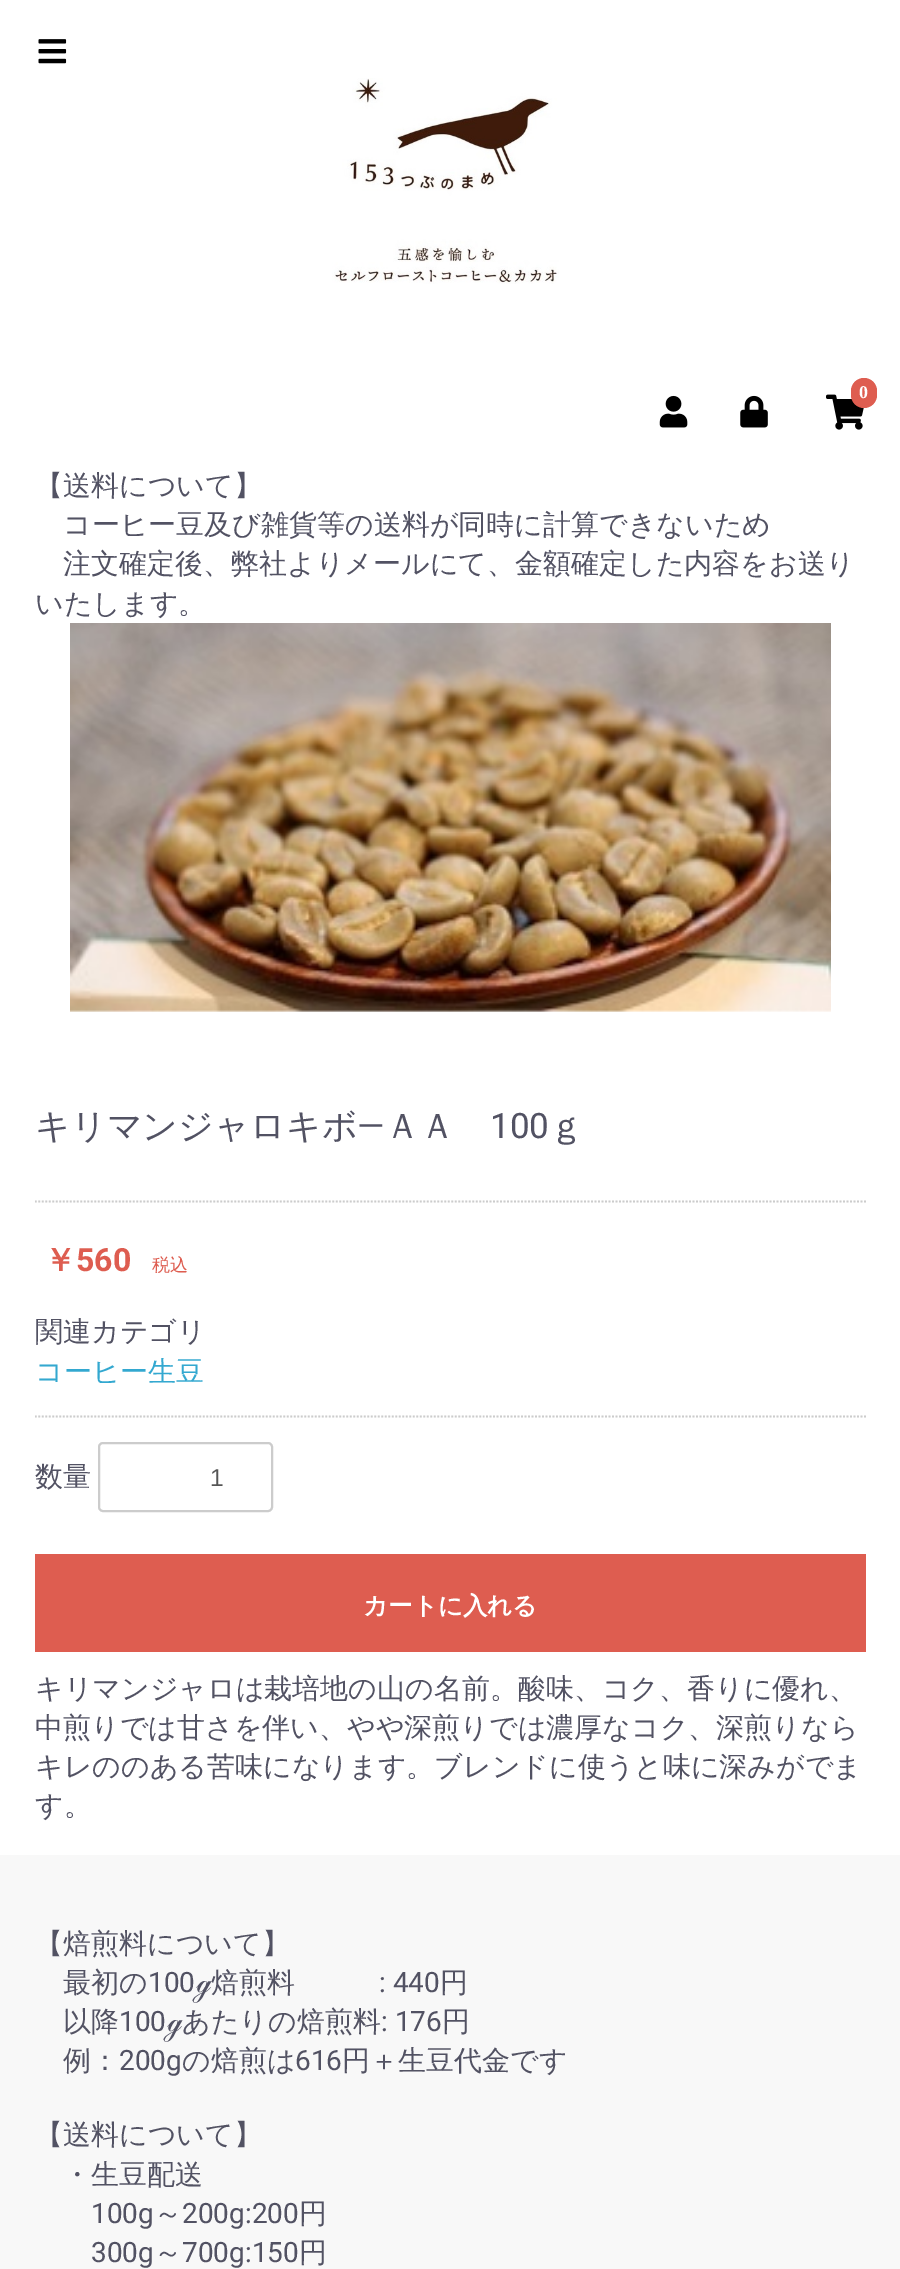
%!PS-Adobe-3.0
%%BoundingBox: 0 0 900 2269
%%LanguageLevel: 3
%%Pages: 1
%%EndComments
%%BeginProlog
/setink { 3 { 255 div 3 1 roll } repeat setrgbcolor } def
/usefont { [ exch dup neg 0 0 3 -1 roll 0 0 ] selectfont } def
/drawtext { setink usefont moveto show } def
/fillbox { setink rectfill } def
/rrect { 5 dict begin { /r /h /w /y /x } { exch def } forall
  x r add y moveto x w add y 2 copy h add r arct x w add y h add x 1 index r arct
  x y h add x y r arct x y 2 copy exch w add exch r arct closepath end } def
/drawimage { 5 dict begin { /h /w /y /x /name } { exch def } forall
  gsave x y translate w h scale
  w h 8 [w 0 0 h 0 0] name (r) file false 3 colorimage grestore end } def
%%EndProlog
%%BeginSetup
<< /PageSize [900 2269] >> setpagedevice
%%EndSetup
%%Page: 1 1
0 2269 translate 1 -1 scale
4 setmiterlimit
0 0 900 2269 255 255 255 fillbox
(assets/img1.rgb) 332 78 227 206 drawimage
(assets/img2.rgb) 38 39 29 25 drawimage
(assets/img3.rgb) 826 394 38 36 drawimage
222 93 80 setink
851 378 26 30 13 rrect fill
(0) 859 398 /LiberationSerif-Bold 18 255 255 255 drawtext
(assets/img4.rgb) 659 395 29 33 drawimage
(assets/img5.rgb) 740 395 28 33 drawimage
(【送料について】) 35 495 /WenQuanYiZenHei-Medium 28 82 82 99 drawtext
(コーヒー豆及び雑貨等の送料が同時に計算できないため) 63 534 /WenQuanYiZenHei-Medium 28 82 82 99 drawtext
(注文確定後、弊社よりメールにて、金額確定した内容をお送り) 63 573 /WenQuanYiZenHei-Medium 28 82 82 99 drawtext
(いたします。) 35 613 /WenQuanYiZenHei-Medium 28 82 82 99 drawtext
(assets/img6.rgb) 70 623 761 389 drawimage
(キリマンジャロキボ) 35 1138 /WenQuanYiZenHei-Medium 35 82 82 99 drawtext
(―) 357 1138 /Roboto-Regular 35 82 82 99 drawtext
(ＡＡ) 385 1138 /WenQuanYiZenHei-Medium 35 82 82 99 drawtext
(100) 490 1138 /Roboto-Regular 35 82 82 99 drawtext
(ｇ) 549 1138 /WenQuanYiZenHei-Medium 35 82 82 99 drawtext
204 204 204 setink
1.8 setlinewidth
[1.75 1.75] 0 setdash
35 1201.5 moveto 866 1201.5 lineto stroke
(￥) 44 1271 /WenQuanYiZenHei-Bold 32 222 93 80 drawtext
(560) 76 1271 /Roboto-Bold 32 222 93 80 drawtext
(税込) 152 1271 /WenQuanYiZenHei-Medium 18 222 93 80 drawtext
204 204 204 setink
35 1416.5 moveto 866 1416.5 lineto stroke
(関連カテゴリ) 35 1341 /WenQuanYiZenHei-Medium 28 82 82 99 drawtext
(コーヒー生豆) 35 1381 /WenQuanYiZenHei-Medium 28 51 168 208 drawtext
(数量) 35 1486 /WenQuanYiZenHei-Medium 28 82 82 99 drawtext
204 204 204 setink
2 setlinewidth
[] 0 setdash
99 1443 173 68 4 rrect stroke
(1) 210 1486 /LiberationSans-Regular 24.5 85 85 85 drawtext
35 1554 831 98 222 93 80 fillbox
(カートに入れる) 363 1614 /WenQuanYiZenHei-Bold 24.5 255 255 255 drawtext
(キリマンジャロは栽培地の山の名前。酸味、コク、香りに優れ、) 35 1698 /WenQuanYiZenHei-Medium 28 82 82 99 drawtext
(中煎りでは甘さを伴い、やや深煎りでは濃厚なコク、深煎りなら) 35 1737 /WenQuanYiZenHei-Medium 28 82 82 99 drawtext
(キレののある苦味になります。ブレンドに使うと味に深みがでま) 35 1776 /WenQuanYiZenHei-Medium 28 82 82 99 drawtext
(す。) 35 1815 /WenQuanYiZenHei-Medium 28 82 82 99 drawtext
0 1855 900 414 248 248 248 fillbox
(【焙煎料について】) 35 1953 /WenQuanYiZenHei-Medium 28 82 82 99 drawtext
(最初の) 63 1992 /WenQuanYiZenHei-Medium 28 82 82 99 drawtext
(100) 148 1992 /Roboto-Regular 28 82 82 99 drawtext
(ℊ) 195 1992 /NotoSans-Regular 28 82 82 99 drawtext
(焙煎料) 211 1992 /WenQuanYiZenHei-Medium 28 82 82 99 drawtext
(: 440) 379 1992 /Roboto-Regular 28 82 82 99 drawtext
(円) 440 1992 /WenQuanYiZenHei-Medium 28 82 82 99 drawtext
(以降) 63 2031 /WenQuanYiZenHei-Medium 28 82 82 99 drawtext
(100) 119 2031 /Roboto-Regular 28 82 82 99 drawtext
(ℊ) 166 2031 /NotoSans-Regular 28 82 82 99 drawtext
(あたりの焙煎料) 182 2031 /WenQuanYiZenHei-Medium 28 82 82 99 drawtext
(: 176) 381 2031 /Roboto-Regular 28 82 82 99 drawtext
(円) 442 2031 /WenQuanYiZenHei-Medium 28 82 82 99 drawtext
(例：) 63 2070 /WenQuanYiZenHei-Medium 28 82 82 99 drawtext
(200g) 119 2070 /Roboto-Regular 28 82 82 99 drawtext
(の焙煎は) 182 2070 /WenQuanYiZenHei-Medium 28 82 82 99 drawtext
(616) 295 2070 /Roboto-Regular 28 82 82 99 drawtext
(円＋生豆代金です) 342 2070 /WenQuanYiZenHei-Medium 28 82 82 99 drawtext
(【送料について】) 35 2144 /WenQuanYiZenHei-Medium 28 82 82 99 drawtext
(・生豆配送) 63 2184 /WenQuanYiZenHei-Medium 28 82 82 99 drawtext
(100g) 91 2223 /Roboto-Regular 28 82 82 99 drawtext
(～) 154 2223 /WenQuanYiZenHei-Medium 28 82 82 99 drawtext
(200g:200) 182 2223 /Roboto-Regular 28 82 82 99 drawtext
(円) 299 2223 /WenQuanYiZenHei-Medium 28 82 82 99 drawtext
(300g) 91 2262 /Roboto-Regular 28 82 82 99 drawtext
(～) 154 2262 /WenQuanYiZenHei-Medium 28 82 82 99 drawtext
(700g:150) 182 2262 /Roboto-Regular 28 82 82 99 drawtext
(円) 299 2262 /WenQuanYiZenHei-Medium 28 82 82 99 drawtext
showpage
%%EOF
